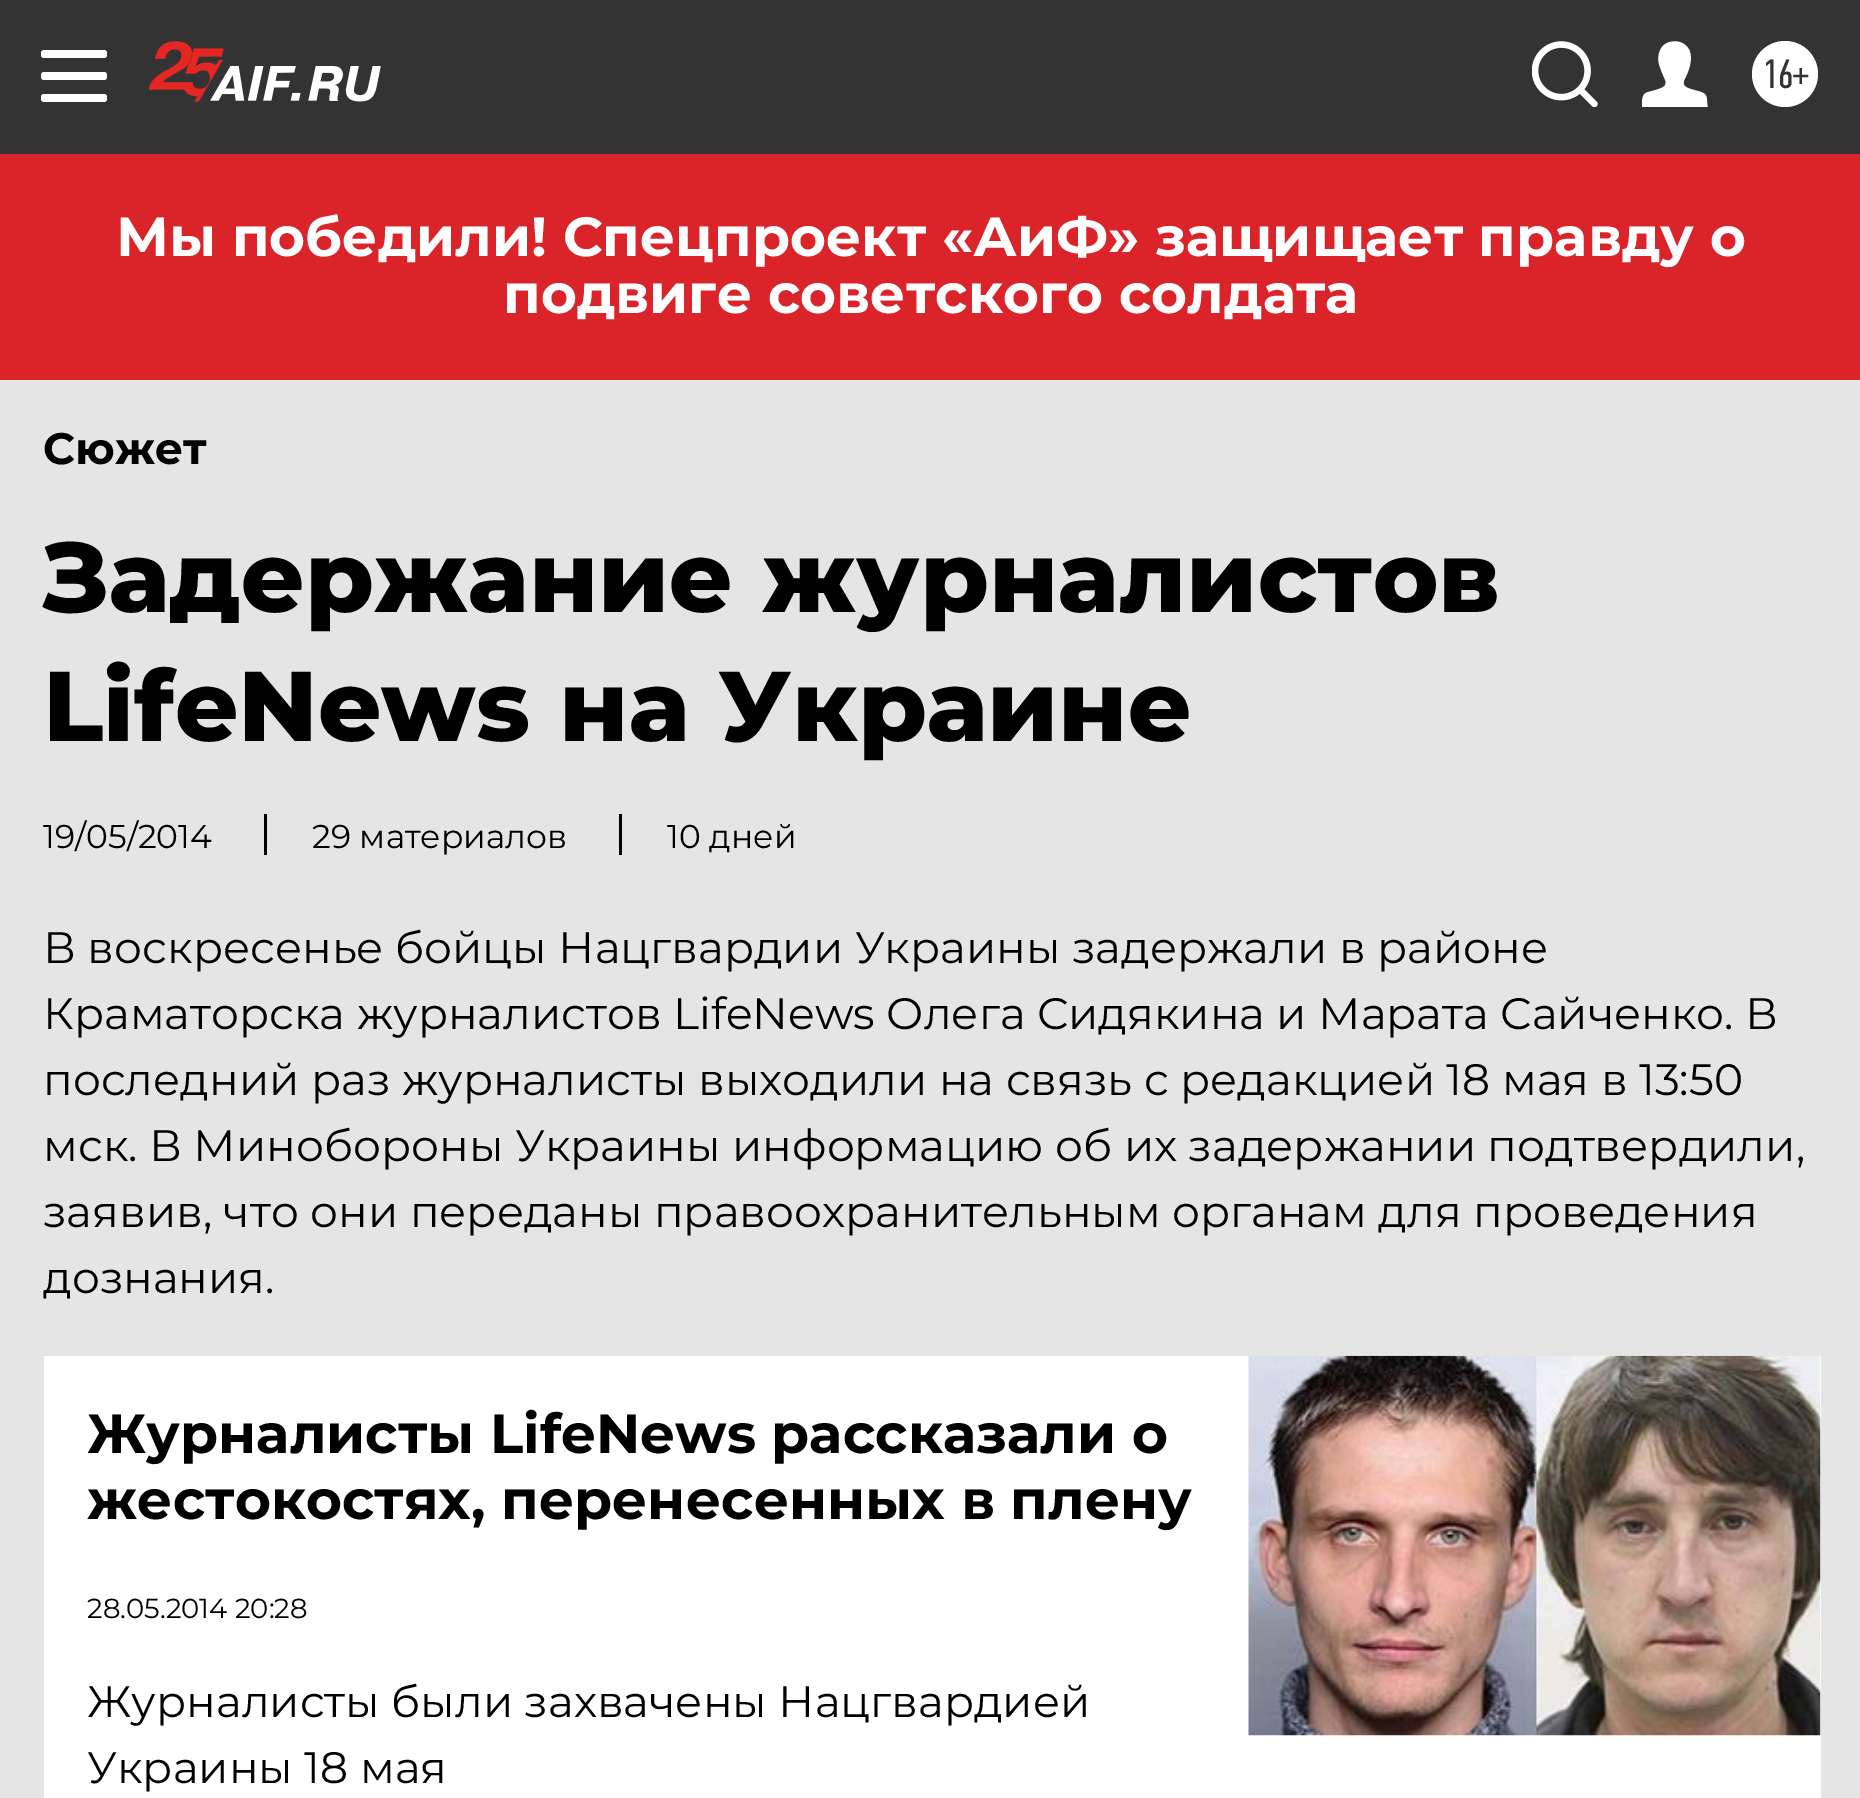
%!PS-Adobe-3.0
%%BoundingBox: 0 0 1860 1798
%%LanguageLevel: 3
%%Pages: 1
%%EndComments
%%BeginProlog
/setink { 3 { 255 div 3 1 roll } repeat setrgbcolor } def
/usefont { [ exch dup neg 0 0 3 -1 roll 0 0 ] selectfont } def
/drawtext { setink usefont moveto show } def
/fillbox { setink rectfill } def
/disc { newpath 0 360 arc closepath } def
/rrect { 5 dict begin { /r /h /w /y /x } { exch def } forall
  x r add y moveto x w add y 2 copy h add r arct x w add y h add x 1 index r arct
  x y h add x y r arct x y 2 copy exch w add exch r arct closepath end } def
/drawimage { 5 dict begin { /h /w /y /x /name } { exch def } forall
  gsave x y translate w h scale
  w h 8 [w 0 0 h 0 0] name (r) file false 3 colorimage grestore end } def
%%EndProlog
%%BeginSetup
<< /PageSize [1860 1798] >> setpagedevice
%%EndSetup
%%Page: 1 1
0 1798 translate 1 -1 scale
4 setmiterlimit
0 0 1860 1798 229 229 229 fillbox
0 0 1860 154 51 51 51 fillbox
255 255 255 setink
41 50 66 8 3 rrect fill
41 72 66 8 3 rrect fill
41 94 66 8 3 rrect fill
(assets/img1.rgb) 149 41 232 61 drawimage
(assets/img2.rgb) 1532 41 66 66 drawimage
(assets/img3.rgb) 1642 41 66 66 drawimage
1785 74 33 disc fill
(16+) 1762 88 /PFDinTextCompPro-Regular 41 51 51 51 drawtext
0 154 1860 226 218 36 41 fillbox
(Мы победили! Спецпроект «АиФ» защищает правду о) 116 256 /Montserrat-Bold 55 255 255 255 drawtext
(подвиге советского солдата) 503 313 /Montserrat-Bold 55 255 255 255 drawtext
(Сюжет) 43 464 /Montserrat-Bold 44 0 0 0 drawtext
(Задержание журналистов) 43 612 /Montserrat-ExtraBold 99 0 0 0 drawtext
(LifeNews на Украине) 43 741 /Montserrat-ExtraBold 99 0 0 0 drawtext
(19/05/2014) 43 848 /Montserrat-Regular 33 0 0 0 drawtext
(29 материалов) 312 848 /Montserrat-Regular 33 0 0 0 drawtext
264 814 3 41 0 0 0 fillbox
(10 дней) 667 848 /Montserrat-Regular 33 0 0 0 drawtext
619 814 3 41 0 0 0 fillbox
(В воскресенье бойцы Нацгвардии Украины задержали в районе) 43 963 /Montserrat-Regular 44 0 0 0 drawtext
(Краматорска журналистов LifeNews Олега Сидякина и Марата Сайченко. В) 43 1029 /Montserrat-Regular 44 0 0 0 drawtext
(последний раз журналисты выходили на связь с редакцией 18 мая в 13:50) 43 1095 /Montserrat-Regular 44 0 0 0 drawtext
(мск. В Минобороны Украины информацию об их задержании подтвердили,) 43 1161 /Montserrat-Regular 44 0 0 0 drawtext
(заявив, что они переданы правоохранительным органам для проведения) 43 1227 /Montserrat-Regular 44 0 0 0 drawtext
(дознания.) 43 1293 /Montserrat-Regular 44 0 0 0 drawtext
44 1356 1777 442 255 255 255 fillbox
(Журналисты LifeNews рассказали о) 87 1453 /Montserrat-Bold 55 0 0 0 drawtext
(жестокостях, перенесенных в плену) 87 1519 /Montserrat-Bold 55 0 0 0 drawtext
(28.05.2014 20:28) 87 1618 /Montserrat-Regular 27.5 0 0 0 drawtext
(Журналисты были захвачены Нацгвардией) 87 1717 /Montserrat-Regular 44 0 0 0 drawtext
(Украины 18 мая) 87 1783 /Montserrat-Regular 44 0 0 0 drawtext
(assets/img4.rgb) 1248 1355 573 381 drawimage
showpage
%%EOF
